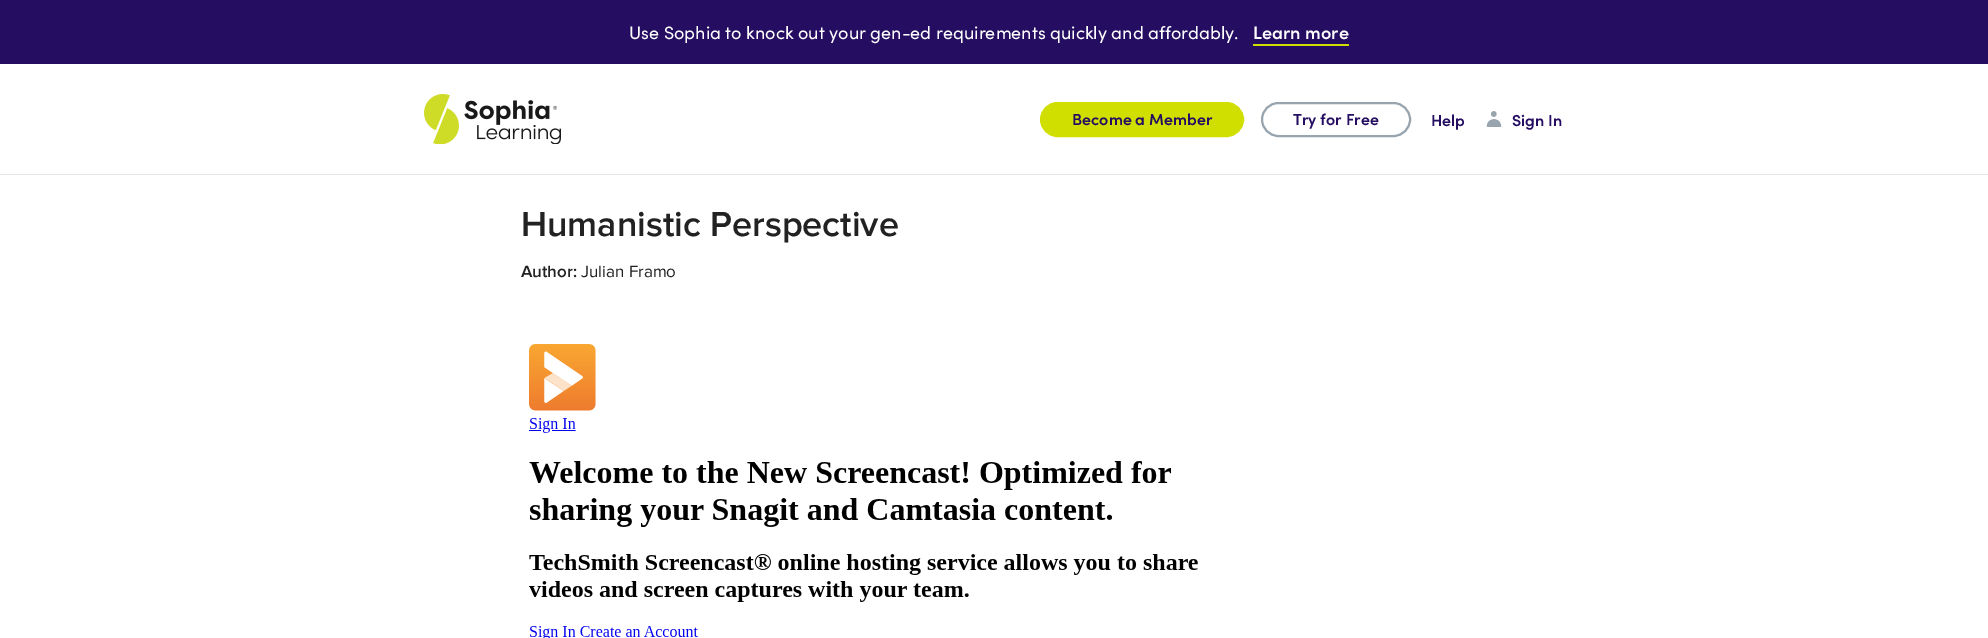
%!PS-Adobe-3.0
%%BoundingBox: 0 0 1988 638
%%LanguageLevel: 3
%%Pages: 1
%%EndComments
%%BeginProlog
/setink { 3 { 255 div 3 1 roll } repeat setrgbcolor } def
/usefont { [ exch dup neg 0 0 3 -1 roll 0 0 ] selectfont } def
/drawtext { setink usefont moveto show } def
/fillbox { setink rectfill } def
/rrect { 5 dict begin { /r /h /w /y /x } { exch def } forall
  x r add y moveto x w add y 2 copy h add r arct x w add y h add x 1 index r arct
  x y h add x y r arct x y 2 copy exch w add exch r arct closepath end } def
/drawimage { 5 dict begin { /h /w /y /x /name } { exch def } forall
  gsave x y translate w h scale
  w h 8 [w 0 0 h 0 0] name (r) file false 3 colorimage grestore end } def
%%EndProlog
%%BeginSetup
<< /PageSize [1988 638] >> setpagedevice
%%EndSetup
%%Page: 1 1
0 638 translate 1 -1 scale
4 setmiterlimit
0 0 1988 638 255 255 255 fillbox
0 0 1988 64 37 14 98 fillbox
(Use Sophia to knock out your gen-ed requirements quickly and affordably.) 629 39 /Sofia-Regular 18 255 255 255 drawtext
(Learn more) 1253 39 /Sofia-SemiBold 18 255 255 255 drawtext
1253 44 96 2 208 223 0 fillbox
0 174 1988 1 230 230 230 fillbox
(assets/img1.rgb) 424 94 137 50 drawimage
208 223 0 setink
1041 103 202 33 16.5 rrect gsave fill grestore
2 setlinewidth
stroke
(Become a Member) 1072 125 /Sofia-SemiBold 16 37 14 98 drawtext
152 164 174 setink
1262 103 148 33 16.5 rrect stroke
(Try for Free) 1293 125 /Sofia-SemiBold 16 37 14 98 drawtext
(Help) 1431 126 /Sofia-SemiBold 16 37 14 98 drawtext
(assets/img2.rgb) 1486 111 16 16 drawimage
(Sign In) 1512 126 /Sofia-SemiBold 16 37 14 98 drawtext
(Humanistic Perspective) 521 236 /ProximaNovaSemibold-SemiBold 36 34 34 34 drawtext
(Author:) 521 277 /ProximaNovaSemibold-SemiBold 17 34 34 34 drawtext
(Julian Framo) 581 277 /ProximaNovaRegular-Regular 17 34 34 34 drawtext
(assets/img3.rgb) 529 344 669 294 drawimage
showpage
%%EOF
